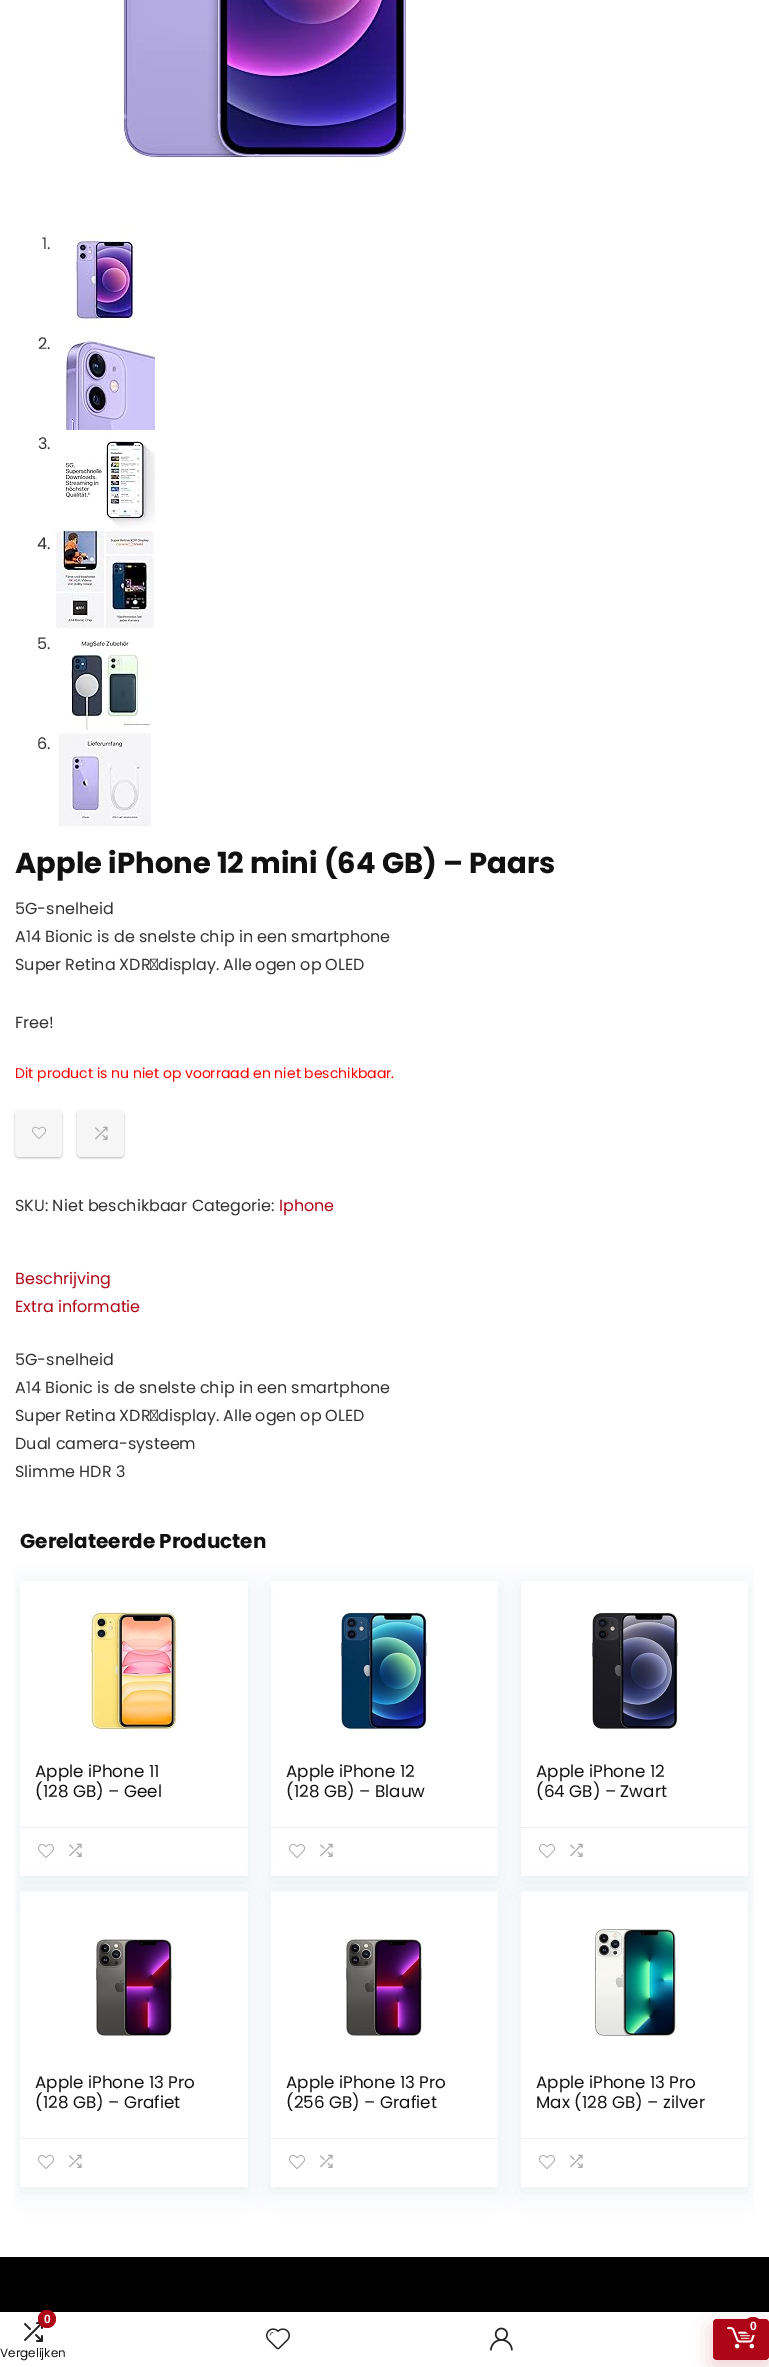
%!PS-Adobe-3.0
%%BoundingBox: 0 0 769 2367
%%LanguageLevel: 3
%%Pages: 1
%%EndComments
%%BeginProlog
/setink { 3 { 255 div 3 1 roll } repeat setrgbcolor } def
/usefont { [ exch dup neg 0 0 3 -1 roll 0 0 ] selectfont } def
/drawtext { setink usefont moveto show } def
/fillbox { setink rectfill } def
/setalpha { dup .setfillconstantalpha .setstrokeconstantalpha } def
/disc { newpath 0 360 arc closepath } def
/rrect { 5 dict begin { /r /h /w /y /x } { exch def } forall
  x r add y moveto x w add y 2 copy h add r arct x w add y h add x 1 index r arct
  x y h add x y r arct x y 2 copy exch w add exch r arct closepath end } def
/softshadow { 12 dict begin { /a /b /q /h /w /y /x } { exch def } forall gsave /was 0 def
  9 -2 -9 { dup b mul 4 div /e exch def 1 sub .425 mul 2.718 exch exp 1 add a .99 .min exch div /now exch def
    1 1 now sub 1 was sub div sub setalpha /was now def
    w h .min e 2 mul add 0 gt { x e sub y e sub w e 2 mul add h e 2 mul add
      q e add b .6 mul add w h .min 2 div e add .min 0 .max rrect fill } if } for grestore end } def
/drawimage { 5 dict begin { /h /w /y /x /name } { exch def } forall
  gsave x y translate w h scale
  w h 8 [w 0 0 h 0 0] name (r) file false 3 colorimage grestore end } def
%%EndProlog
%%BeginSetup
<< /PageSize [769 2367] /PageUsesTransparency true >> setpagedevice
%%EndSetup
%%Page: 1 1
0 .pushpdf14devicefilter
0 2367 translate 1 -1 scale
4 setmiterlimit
0 0 769 2367 255 255 255 fillbox
(assets/img1.rgb) 115 0 296 162 drawimage
(1.) 42 249 /Poppins-Regular 16 51 51 51 drawtext
(assets/img2.rgb) 71 230 64 96 drawimage
(2.) 38 349 /Poppins-Regular 16 51 51 51 drawtext
(assets/img3.rgb) 62 337 93 93 drawimage
(3.) 38 449 /Poppins-Regular 16 51 51 51 drawtext
(assets/img4.rgb) 64 439 91 89 drawimage
(4.) 37 549 /Poppins-Regular 16 51 51 51 drawtext
(assets/img5.rgb) 55 530 99 99 drawimage
(5.) 37 649 /Poppins-Regular 16 51 51 51 drawtext
(assets/img6.rgb) 71 638 80 92 drawimage
(6.) 37 749 /Poppins-Regular 16 51 51 51 drawtext
(assets/img7.rgb) 55 730 96 96 drawimage
(Apple iPhone 12 mini \(64 GB\) – Paars) 15 873 /Poppins-Bold 29 17 17 17 drawtext
(5G-snelheid) 15 914 /Poppins-Regular 16 51 51 51 drawtext
(A14 Bionic is de snelste chip in een smartphone) 15 942 /Poppins-Regular 16 51 51 51 drawtext
15 970 moveto -0.5 0 32 (Super Retina XDR‑display. Alle ogen op OLED) widthshow
(Free!) 15 1028 /Poppins-Regular 16 51 51 51 drawtext
(Dit product is nu niet op voorraad en niet beschikbaar.) 15 1078 /Poppins-Regular 14 255 0 0 drawtext
0 0 0 setink
15 1111 47 47 4 1 0.08 softshadow
60 64 67 setink
15 1111 47 47 4 1 0.3 softshadow
246 246 246 setink
15 1110 47 47 4 rrect fill
(assets/img8.rgb) 32 1126 14 13 drawimage
0 0 0 setink
77 1111 47 47 4 1 0.08 softshadow
60 64 67 setink
77 1111 47 47 4 1 0.3 softshadow
246 246 246 setink
77 1110 47 47 4 rrect fill
(assets/img9.rgb) 95 1126 13 14 drawimage
(SKU: Niet beschikbaar Categorie:) 15 1211 /Poppins-Regular 16 51 51 51 drawtext
(Iphone) 279 1211 /Poppins-Regular 16 174 6 23 drawtext
(Beschrijving) 15 1284 /Poppins-Regular 16 174 6 23 drawtext
(Extra informatie) 15 1312 /Poppins-Regular 16 174 6 23 drawtext
(5G-snelheid) 15 1365 /Poppins-Regular 16 51 51 51 drawtext
(A14 Bionic is de snelste chip in een smartphone) 15 1393 /Poppins-Regular 16 51 51 51 drawtext
15 1421 moveto -0.5 0 32 (Super Retina XDR‑display. Alle ogen op OLED) widthshow
(Dual camera-systeem) 15 1449 /Poppins-Regular 16 51 51 51 drawtext
(Slimme HDR 3) 15 1477 /Poppins-Regular 16 51 51 51 drawtext
(Gerelateerde Producten) 20 1548 /Poppins-Bold 20 17 17 17 drawtext
gsave
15 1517 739 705 rectclip
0 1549 moveto 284 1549 lineto 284 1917 lineto 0 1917 lineto closepath 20 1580 moveto 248 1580 lineto 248 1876 lineto 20 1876 lineto closepath eoclip newpath
188 207 219 setink
20 1585 228 296 0 11.5 0.35 softshadow
grestore
20 1580 228 1 248 248 248 fillbox
(assets/img10.rgb) 91 1612 88 120 drawimage
(Apple iPhone 11) 35 1777 /Poppins-Regular 16.75 17 17 17 drawtext
(\(128 GB\) – Geel) 35 1797 /Poppins-Regular 16.75 17 17 17 drawtext
20 1827 228 1 240 240 240 fillbox
(assets/img11.rgb) 38 1844 16 14 drawimage
(assets/img12.rgb) 69 1843 13 14 drawimage
gsave
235 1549 moveto 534 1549 lineto 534 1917 lineto 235 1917 lineto closepath 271 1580 moveto 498 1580 lineto 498 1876 lineto 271 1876 lineto closepath eoclip newpath
188 207 219 setink
271 1585 227 296 0 11.5 0.35 softshadow
grestore
271 1580 227 1 248 248 248 fillbox
(assets/img13.rgb) 341 1612 88 120 drawimage
(Apple iPhone 12) 286 1777 /Poppins-Regular 16.75 17 17 17 drawtext
(\(128 GB\) – Blauw) 286 1797 /Poppins-Regular 16.75 17 17 17 drawtext
271 1827 227 1 240 240 240 fillbox
(assets/img11.rgb) 289 1844 16 14 drawimage
(assets/img12.rgb) 320 1843 13 14 drawimage
gsave
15 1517 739 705 rectclip
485 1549 moveto 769 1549 lineto 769 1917 lineto 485 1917 lineto closepath 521 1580 moveto 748 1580 lineto 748 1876 lineto 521 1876 lineto closepath eoclip newpath
188 207 219 setink
521 1585 227 296 0 11.5 0.35 softshadow
grestore
521 1580 227 1 248 248 248 fillbox
(assets/img14.rgb) 592 1612 86 118 drawimage
(Apple iPhone 12) 536 1777 /Poppins-Regular 16.75 17 17 17 drawtext
(\(64 GB\) – Zwart) 536 1797 /Poppins-Regular 16.75 17 17 17 drawtext
521 1827 227 1 240 240 240 fillbox
(assets/img11.rgb) 539 1844 16 14 drawimage
(assets/img12.rgb) 570 1843 13 14 drawimage
gsave
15 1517 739 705 rectclip
188 207 219 setink
20 1896 228 296 0 11.5 0.35 softshadow
grestore
20 1892 228 295 255 255 255 fillbox
20 1891 228 1 248 248 248 fillbox
(assets/img15.rgb) 95 1939 77 97 drawimage
(Apple iPhone 13 Pro) 35 2088 /Poppins-Regular 16.75 17 17 17 drawtext
(\(128 GB\) – Grafiet) 35 2108 /Poppins-Regular 16.75 17 17 17 drawtext
20 2138 228 1 240 240 240 fillbox
(assets/img11.rgb) 38 2155 16 14 drawimage
(assets/img12.rgb) 69 2154 13 14 drawimage
188 207 219 setink
271 1896 227 296 0 11.5 0.35 softshadow
271 1892 227 295 255 255 255 fillbox
271 1891 227 1 248 248 248 fillbox
(assets/img15.rgb) 345 1939 77 97 drawimage
(Apple iPhone 13 Pro) 286 2088 /Poppins-Regular 16.75 17 17 17 drawtext
(\(256 GB\) – Grafiet) 286 2108 /Poppins-Regular 16.75 17 17 17 drawtext
271 2138 227 1 240 240 240 fillbox
(assets/img11.rgb) 289 2155 16 14 drawimage
(assets/img12.rgb) 320 2154 13 14 drawimage
gsave
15 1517 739 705 rectclip
188 207 219 setink
521 1896 227 296 0 11.5 0.35 softshadow
grestore
521 1892 227 295 255 255 255 fillbox
521 1891 227 1 248 248 248 fillbox
(assets/img16.rgb) 595 1929 84 107 drawimage
(Apple iPhone 13 Pro) 536 2088 /Poppins-Regular 16.75 17 17 17 drawtext
(Max \(128 GB\) – zilver) 536 2108 /Poppins-Regular 16.75 17 17 17 drawtext
521 2138 227 1 240 240 240 fillbox
(assets/img11.rgb) 539 2155 16 14 drawimage
(assets/img12.rgb) 570 2154 13 14 drawimage
0 2257 769 55 0 0 0 fillbox
0 2312 769 55 0 4.5 0.12 softshadow
0 2312 769 55 255 255 255 fillbox
(assets/img17.rgb) 24 2322 19 20 drawimage
174 6 23 setink
47 2319 9 disc fill
(0) 44 2323 /LiberationSans-Bold 12 255 255 255 drawtext
(Vergelijken) 0 2357 /Poppins-Regular 12 17 17 17 drawtext
174 6 23 setink
712 2325 56 41 4 9.5 0.2 softshadow
713 2319 56 41 4 rrect fill
(assets/img18.rgb) 727 2327 28 22 drawimage
753 2326 9 disc fill
(0) 750 2330 /LiberationSans-Bold 12 255 255 255 drawtext
(assets/img19.rgb) 266 2328 24 22 drawimage
(assets/img20.rgb) 490 2327 23 24 drawimage
.poppdf14devicefilter showpage
%%EOF
